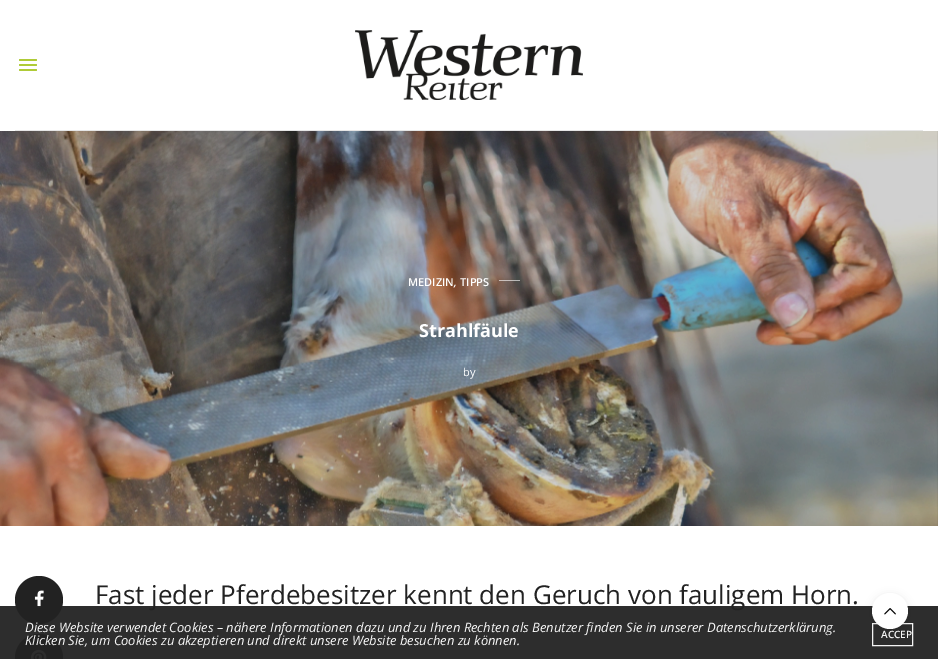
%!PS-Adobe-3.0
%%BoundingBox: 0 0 938 659
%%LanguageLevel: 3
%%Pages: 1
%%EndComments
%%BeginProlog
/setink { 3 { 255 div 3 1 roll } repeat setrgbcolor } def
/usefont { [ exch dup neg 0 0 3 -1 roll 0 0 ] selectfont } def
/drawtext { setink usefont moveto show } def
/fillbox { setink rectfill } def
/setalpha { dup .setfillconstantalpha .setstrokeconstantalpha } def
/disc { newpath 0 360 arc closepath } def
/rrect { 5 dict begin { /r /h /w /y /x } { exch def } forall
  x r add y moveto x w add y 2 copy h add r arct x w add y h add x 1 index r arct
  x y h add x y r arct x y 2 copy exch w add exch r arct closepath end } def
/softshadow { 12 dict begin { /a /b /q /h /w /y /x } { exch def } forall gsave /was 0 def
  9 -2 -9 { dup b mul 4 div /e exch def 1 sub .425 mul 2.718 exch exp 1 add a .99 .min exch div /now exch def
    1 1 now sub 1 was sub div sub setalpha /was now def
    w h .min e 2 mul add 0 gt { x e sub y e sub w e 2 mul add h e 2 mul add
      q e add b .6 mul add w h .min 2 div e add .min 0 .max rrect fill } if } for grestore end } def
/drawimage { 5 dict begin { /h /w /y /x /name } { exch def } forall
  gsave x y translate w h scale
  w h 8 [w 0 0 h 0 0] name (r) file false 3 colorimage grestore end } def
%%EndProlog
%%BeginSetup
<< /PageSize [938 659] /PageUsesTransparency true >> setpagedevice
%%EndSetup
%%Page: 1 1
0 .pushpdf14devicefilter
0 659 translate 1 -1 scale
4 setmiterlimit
0 0 938 659 255 255 255 fillbox
15 130 908 1 230 230 230 fillbox
175 203 55 setink
19 59 18 2 1 rrect fill
19 64 18 2 1 rrect fill
19 69 18 2 1 rrect fill
(assets/img1.rgb) 355 30 228 70 drawimage
(assets/img2.rgb) 0 131 938 395 drawimage
(MEDIZIN) 408 286 /OpenSans-SemiBold 11 255 255 255 drawtext
(,) 454 286 /OpenSans-SemiBoldItalic 11 255 255 255 drawtext
(TIPPS) 460 286 /OpenSans-SemiBold 11 255 255 255 drawtext
0.6 setalpha
499 280 21 1 255 255 255 fillbox
1 setalpha
(Strahlfäule) 419 337 /OpenSans-Bold 18 255 255 255 drawtext
(by) 463 376 /OpenSans-Regular 11 255 255 255 drawtext
34 34 34 setink
39 600 24 disc fill
(assets/img3.rgb) 34 590 10 18 drawimage
39 658 24 disc fill
(assets/img4.rgb) 31 649 16 10 drawimage
(Fast jeder Pferdebesitzer kennt den Geruch von fauligem Horn.) 95 604 /OpenSans-Regular 26 34 34 34 drawtext
0.95 setalpha
0 606 938 53 34 34 34 fillbox
255 255 255 setink
872.5 623.5 40 22 rectstroke
1 setalpha
0 0 0 setink
872 595 36 36 18 4 0.1 softshadow
255 255 255 setink
890 611 18 disc fill
(assets/img5.rgb) 884 608 12 7 drawimage
(Diese Website verwendet Cookies – nähere Informationen dazu und zu Ihren Rechten als Benutzer finden Sie in unserer Datenschutzerklärung.) 25 632 /OpenSans-Italic 13 245 245 245 drawtext
(Klicken Sie, um Cookies zu akzeptieren und direkt unsere Website besuchen zu können.) 25 645 /OpenSans-Italic 13 245 245 245 drawtext
(ACCEP) 881 638 /OpenSans-SemiBold 10 245 245 245 drawtext
.poppdf14devicefilter showpage
%%EOF
